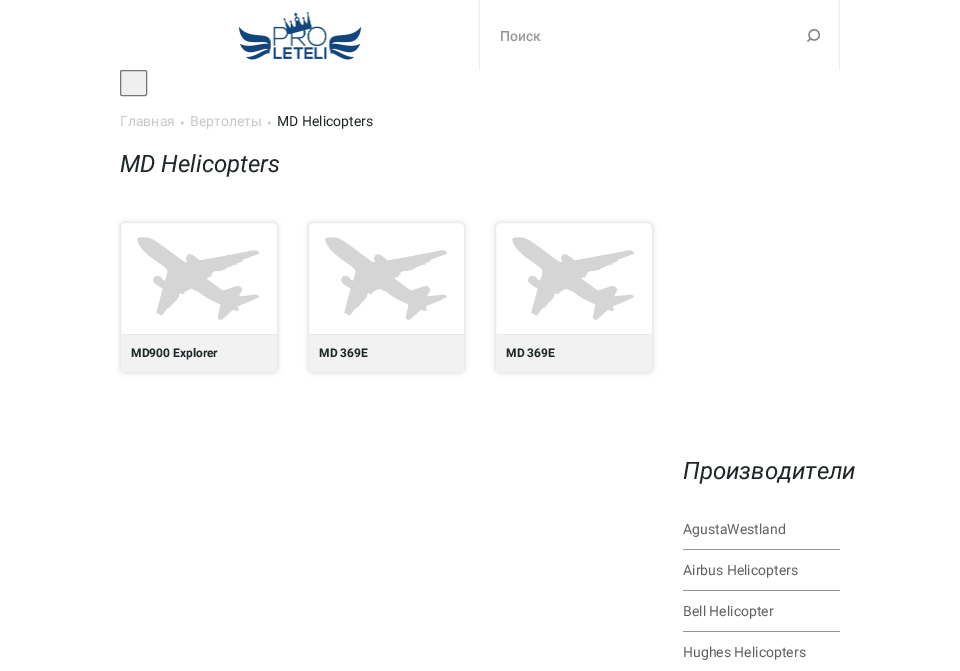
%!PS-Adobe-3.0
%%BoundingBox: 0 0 960 671
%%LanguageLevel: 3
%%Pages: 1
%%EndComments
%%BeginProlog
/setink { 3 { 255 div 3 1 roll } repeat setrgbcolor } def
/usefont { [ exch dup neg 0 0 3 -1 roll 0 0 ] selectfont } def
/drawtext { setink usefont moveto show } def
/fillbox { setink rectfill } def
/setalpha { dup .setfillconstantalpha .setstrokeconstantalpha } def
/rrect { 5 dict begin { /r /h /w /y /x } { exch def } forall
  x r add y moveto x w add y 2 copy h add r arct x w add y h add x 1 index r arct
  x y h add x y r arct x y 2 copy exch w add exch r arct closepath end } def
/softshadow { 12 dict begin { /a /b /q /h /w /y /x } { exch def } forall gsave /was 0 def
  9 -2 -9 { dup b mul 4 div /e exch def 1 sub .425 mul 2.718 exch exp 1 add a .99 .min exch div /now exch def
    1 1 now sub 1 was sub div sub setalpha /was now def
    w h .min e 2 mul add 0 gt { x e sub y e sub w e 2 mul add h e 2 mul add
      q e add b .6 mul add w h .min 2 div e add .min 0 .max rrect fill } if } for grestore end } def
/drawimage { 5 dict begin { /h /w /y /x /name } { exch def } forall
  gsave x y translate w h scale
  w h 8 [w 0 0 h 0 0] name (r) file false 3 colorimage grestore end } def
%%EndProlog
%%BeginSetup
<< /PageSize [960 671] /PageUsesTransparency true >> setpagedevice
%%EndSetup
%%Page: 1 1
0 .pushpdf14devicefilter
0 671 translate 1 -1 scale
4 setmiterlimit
0 0 960 671 255 255 255 fillbox
(assets/img1.rgb) 239 12 123 48 drawimage
839 0 1 70 237 237 237 fillbox
479 0 1 70 237 237 237 fillbox
(Поиск) 500 41 /Roboto-Medium 14 153 153 153 drawtext
(assets/img2.rgb) 807 29 13 13 drawimage
239 239 239 setink
120.5 70.5 26 25 1.5 rrect gsave fill grestore
118 118 118 setink
stroke
(Главная) 120 126 /Roboto-Regular 14 199 201 201 drawtext
(•) 180 128 /Roboto-Regular 14 199 201 201 drawtext
(Вертолеты) 190 126 /Roboto-Regular 14 199 201 201 drawtext
(•) 267 128 /Roboto-Regular 14 199 201 201 drawtext
(MD Helicopters) 277 126 /Roboto-Regular 14 30 38 40 drawtext
(MD Helicopters) 120 172 /Roboto-Italic 24 30 38 40 drawtext
0 0 0 setink
120 222 158 151 5 2.5 0.12 softshadow
255 255 255 setink
120.5 222.5 157 150 4.5 rrect gsave fill grestore
235 235 235 setink
stroke
(assets/img3.rgb) 137 237 123 83 drawimage
121 335 156 37 242 242 242 fillbox
121 334 156 1 235 235 235 fillbox
(MD900 Explorer) 131 357 /Roboto-Bold 12 30 38 40 drawtext
0 0 0 setink
308 222 157 151 5 2.5 0.12 softshadow
255 255 255 setink
308.5 222.5 156 150 4.5 rrect gsave fill grestore
235 235 235 setink
stroke
(assets/img4.rgb) 325 237 123 83 drawimage
309 335 155 37 242 242 242 fillbox
309 334 155 1 235 235 235 fillbox
(MD 369E) 319 357 /Roboto-Bold 12 30 38 40 drawtext
0 0 0 setink
495 222 158 151 5 2.5 0.12 softshadow
255 255 255 setink
495.5 222.5 157 150 4.5 rrect gsave fill grestore
235 235 235 setink
stroke
(assets/img3.rgb) 512 237 123 83 drawimage
496 335 156 37 242 242 242 fillbox
496 334 156 1 235 235 235 fillbox
(MD 369E) 506 357 /Roboto-Bold 12 30 38 40 drawtext
(Производители) 683 479 /Roboto-Italic 24 30 38 40 drawtext
683 549 157 1 148 148 148 fillbox
(AgustaWestland) 683 534 /Roboto-Regular 14 97 97 97 drawtext
683 590 157 1 148 148 148 fillbox
(Airbus Helicopters) 683 575 /Roboto-Regular 14 97 97 97 drawtext
683 631 157 1 148 148 148 fillbox
(Bell Helicopter) 683 616 /Roboto-Regular 14 97 97 97 drawtext
(Hughes Helicopters) 683 657 /Roboto-Regular 14 97 97 97 drawtext
.poppdf14devicefilter showpage
%%EOF
